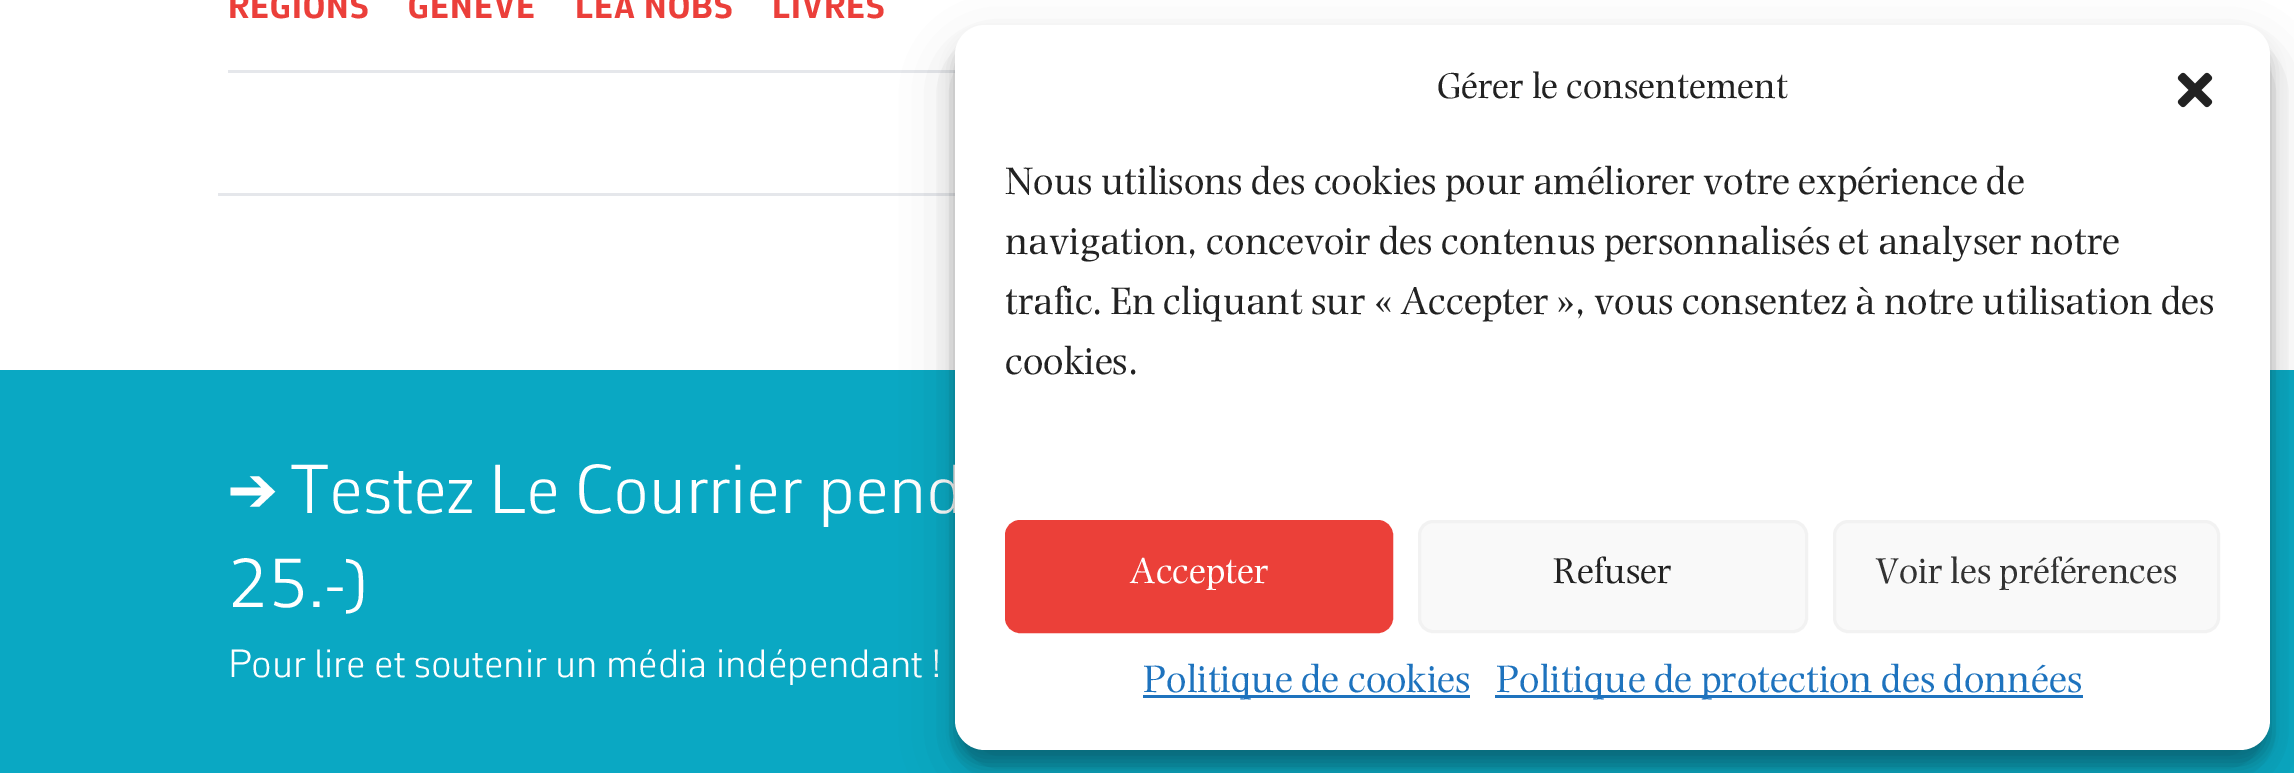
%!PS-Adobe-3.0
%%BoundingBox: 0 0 2294 773
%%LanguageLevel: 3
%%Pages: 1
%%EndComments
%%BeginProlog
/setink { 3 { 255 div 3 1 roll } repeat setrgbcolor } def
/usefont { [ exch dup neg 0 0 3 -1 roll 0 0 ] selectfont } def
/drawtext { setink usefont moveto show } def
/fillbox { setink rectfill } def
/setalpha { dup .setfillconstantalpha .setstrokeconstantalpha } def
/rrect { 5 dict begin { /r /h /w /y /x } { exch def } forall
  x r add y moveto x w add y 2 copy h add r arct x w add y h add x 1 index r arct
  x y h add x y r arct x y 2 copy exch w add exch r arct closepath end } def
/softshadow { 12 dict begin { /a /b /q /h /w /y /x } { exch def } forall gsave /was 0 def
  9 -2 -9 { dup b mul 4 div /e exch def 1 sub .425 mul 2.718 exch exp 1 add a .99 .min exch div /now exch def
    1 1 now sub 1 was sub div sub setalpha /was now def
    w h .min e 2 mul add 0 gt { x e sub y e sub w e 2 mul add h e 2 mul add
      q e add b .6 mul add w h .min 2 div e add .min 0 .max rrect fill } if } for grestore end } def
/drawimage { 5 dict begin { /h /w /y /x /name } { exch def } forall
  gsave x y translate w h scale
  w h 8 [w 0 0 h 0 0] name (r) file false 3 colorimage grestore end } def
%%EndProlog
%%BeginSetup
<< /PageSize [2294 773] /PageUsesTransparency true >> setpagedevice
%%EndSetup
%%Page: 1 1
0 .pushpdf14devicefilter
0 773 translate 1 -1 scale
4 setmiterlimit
0 0 2294 773 255 255 255 fillbox
228 70 727 3 229 231 235 fillbox
/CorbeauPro-Bold 35 usefont
235 63 58 setink
228 18 moveto 1 0 (RÉGIONS) ashow
408 18 moveto 1 0 (GENÈVE) ashow
575 18 moveto 1 0 (LÉA NOBS) ashow
772 18 moveto 1 0 (LIVRES) ashow
218 193 737 3 229 231 235 fillbox
0 370 2294 403 10 168 195 fillbox
(→) 228 513 /CorbeauPro-Bold 70 255 255 255 drawtext
(Testez Le Courrier pend) 290 513 /CorbeauPro-Light 70 255 255 255 drawtext
(25.-\)) 228 607 /CorbeauPro-Light 70 255 255 255 drawtext
(Pour lire et soutenir un média indépendant !) 228 677 /CorbeauPro-Light 40 255 255 255 drawtext
0 0 0 setink
955 40 1315 725 30 7.5 0.23 softshadow
955 50 1315 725 30 25 0.19 softshadow
255 255 255 setink
955 25 1315 725 30 rrect fill
(Gérer le consentement) 1437 98 /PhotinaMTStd-Regular 37.5 34 34 34 drawtext
(assets/img1.rgb) 2177 72 36 36 drawimage
(Nous utilisons des cookies pour améliorer votre expérience de) 1005 194 /PhotinaMTStd-Regular 40 34 34 34 drawtext
(navigation, concevoir des contenus personnalisés et analyser notre) 1005 254 /PhotinaMTStd-Regular 40 34 34 34 drawtext
(trafic. En cliquant sur « Accepter », vous consentez à notre utilisation des) 1005 314 /PhotinaMTStd-Regular 40 34 34 34 drawtext
(cookies.) 1005 374 /PhotinaMTStd-Regular 40 34 34 34 drawtext
235 64 57 setink
1006.5 521.5 385 110 13.5 rrect gsave fill grestore
3 setlinewidth
stroke
(Accepter) 1129 583 /PhotinaMTStd-Regular 37.5 255 255 255 drawtext
249 249 249 setink
1419.5 521.5 387 110 13.5 rrect gsave fill grestore
242 242 242 setink
stroke
(Refuser) 1553 583 /PhotinaMTStd-Regular 37.5 34 34 34 drawtext
249 249 249 setink
1834.5 521.5 384 110 13.5 rrect gsave fill grestore
242 242 242 setink
stroke
(Voir les préférences) 1875 583 /PhotinaMTStd-Regular 37.5 51 51 51 drawtext
1143 695 327 3 30 115 190 fillbox
(Politique de cookies) 1143 692 /PhotinaMTStd-Regular 40 30 115 190 drawtext
1495 695 588 3 30 115 190 fillbox
(Politique de protection des données) 1496 692 /PhotinaMTStd-Regular 40 30 115 190 drawtext
.poppdf14devicefilter showpage
%%EOF
